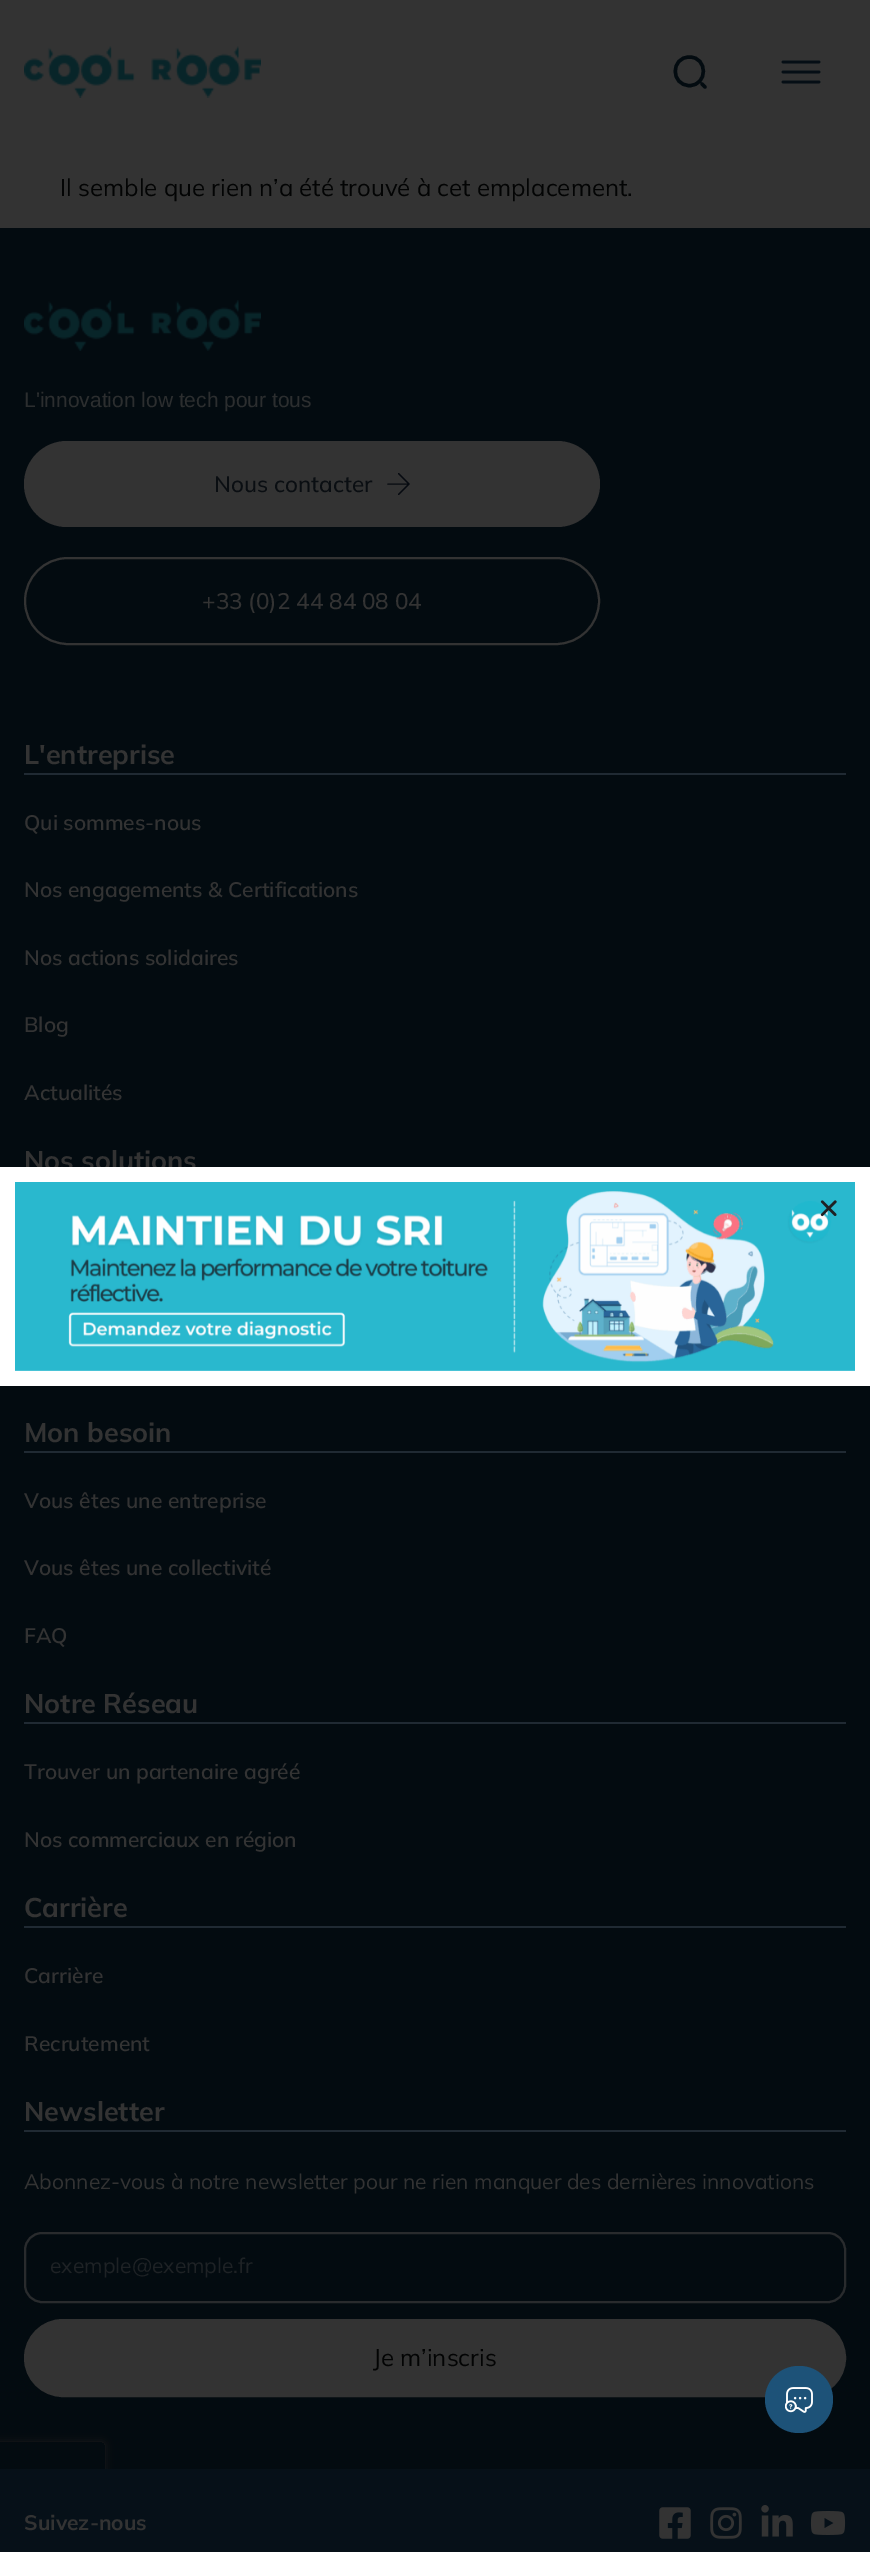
%!PS-Adobe-3.0
%%BoundingBox: 0 0 870 2552
%%LanguageLevel: 3
%%Pages: 1
%%EndComments
%%BeginProlog
/setink { 3 { 255 div 3 1 roll } repeat setrgbcolor } def
/usefont { [ exch dup neg 0 0 3 -1 roll 0 0 ] selectfont } def
/drawtext { setink usefont moveto show } def
/fillbox { setink rectfill } def
/setalpha { dup .setfillconstantalpha .setstrokeconstantalpha } def
/rrect { 5 dict begin { /r /h /w /y /x } { exch def } forall
  x r add y moveto x w add y 2 copy h add r arct x w add y h add x 1 index r arct
  x y h add x y r arct x y 2 copy exch w add exch r arct closepath end } def
/softshadow { 12 dict begin { /a /b /q /h /w /y /x } { exch def } forall gsave /was 0 def
  9 -2 -9 { dup b mul 4 div /e exch def 1 sub .425 mul 2.718 exch exp 1 add a .99 .min exch div /now exch def
    1 1 now sub 1 was sub div sub setalpha /was now def
    w h .min e 2 mul add 0 gt { x e sub y e sub w e 2 mul add h e 2 mul add
      q e add b .6 mul add w h .min 2 div e add .min 0 .max rrect fill } if } for grestore end } def
/drawimage { 5 dict begin { /h /w /y /x /name } { exch def } forall
  gsave x y translate w h scale
  w h 8 [w 0 0 h 0 0] name (r) file false 3 colorimage grestore end } def
%%EndProlog
%%BeginSetup
<< /PageSize [870 2552] /PageUsesTransparency true >> setpagedevice
%%EndSetup
%%Page: 1 1
0 .pushpdf14devicefilter
0 2552 translate 1 -1 scale
4 setmiterlimit
0 0 870 2552 51 51 51 fillbox
(assets/img1.rgb) 24 46 237 52 drawimage
3 11 16 setink
3.4 setlinewidth
1 setlinecap
1 setlinejoin
689.5 85.5 moveto 708 85.5 708 57 689.5 57 curveto 670.5 57 670.5 85.5 689.5 85.5 curveto closepath 705 87 moveto 702 84 lineto stroke
(assets/img2.rgb) 781 60 40 24 drawimage
(Il semble que rien n’a été trouvé à cet emplacement.) 60 196 /Mulish-Regular 24 3 4 4 drawtext
0 228 870 2241 3 11 16 fillbox
(assets/img3.rgb) 24 300 237 51 drawimage
(L'innovation low tech pour tous) 24 407 /LiberationSans-Regular 21 44 46 47 drawtext
51 51 51 setink
24 441 576 86 43 rrect fill
(Nous contacter) 214 492 /Mulish-Medium 22.5 10 14 18 drawtext
6 10 16 setink
1.1 setlinewidth
388 484 moveto 409 484 lineto 409 484 moveto 398.5 473.5 lineto 409 484 moveto 398.5 494.5 lineto stroke
51 51 51 setink
2 setlinewidth
0 setlinecap
0 setlinejoin
25 558 574 86 43 rrect stroke
(+33 \(0\)2 44 84 08 04) 202 609 /Mulish-Medium 22.5 51 51 51 drawtext
24 773 822 2 32 42 51 fillbox
(L'entreprise) 24 764 /Mulish-Bold 27 51 51 51 drawtext
(Qui sommes-nous) 24 830 /Mulish-SemiBold 21 51 51 51 drawtext
(Nos engagements & Certifications) 24 897 /Mulish-SemiBold 21 51 51 51 drawtext
(Nos actions solidaires) 24 965 /Mulish-SemiBold 21 51 51 51 drawtext
(Blog) 24 1032 /Mulish-SemiBold 21 51 51 51 drawtext
(Actualités) 24 1100 /Mulish-SemiBold 21 51 51 51 drawtext
(Nos solutions) 24 1170 /Mulish-Bold 27 51 51 51 drawtext
24 1451 822 2 32 42 51 fillbox
(Mon besoin) 24 1442 /Mulish-Bold 27 51 51 51 drawtext
(Vous êtes une entreprise) 24 1508 /Mulish-SemiBold 21 51 51 51 drawtext
(Vous êtes une collectivité) 24 1575 /Mulish-SemiBold 21 51 51 51 drawtext
(FAQ) 24 1643 /Mulish-SemiBold 21 51 51 51 drawtext
24 1722 822 2 32 42 51 fillbox
(Notre Réseau) 24 1713 /Mulish-Bold 27 51 51 51 drawtext
(Trouver un partenaire agréé) 24 1779 /Mulish-SemiBold 21 51 51 51 drawtext
(Nos commerciaux en région) 24 1847 /Mulish-SemiBold 21 51 51 51 drawtext
24 1926 822 2 32 42 51 fillbox
(Carrière) 24 1917 /Mulish-Bold 27 51 51 51 drawtext
(Carrière) 24 1983 /Mulish-SemiBold 21 51 51 51 drawtext
(Recrutement) 24 2051 /Mulish-SemiBold 21 51 51 51 drawtext
24 2130 822 2 32 42 51 fillbox
(Newsletter) 24 2121 /Mulish-Bold 27 51 51 51 drawtext
(Abonnez-vous à notre newsletter pour ne rien manquer des dernières innovations) 24 2189 /Mulish-Regular 21 51 51 51 drawtext
41 43 45 setink
25 2233 820 69 17 rrect stroke
(exemple@exemple.fr) 50 2273 /Mulish-Regular 21 30 34 37 drawtext
51 51 51 setink
25 2320 820 76 38 rrect gsave fill grestore
stroke
(Je m’inscris) 373 2366 /Mulish-Regular 24 3 4 4 drawtext
gsave
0 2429 moveto 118 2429 lineto 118 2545 lineto 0 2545 lineto closepath -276 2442 moveto 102 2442 lineto 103.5 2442 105 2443.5 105 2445 curveto 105 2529 lineto 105 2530.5 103.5 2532 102 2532 curveto -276 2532 lineto -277.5 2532 -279 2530.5 -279 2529 curveto -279 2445 lineto -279 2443.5 -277.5 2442 -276 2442 curveto closepath eoclip newpath
26 26 26 setink
-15 2442 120 90 3 4 1 softshadow
grestore
0 2469 870 83 6 16 24 fillbox
(Suivez-nous) 24 2530 /Mulish-Bold 21 51 51 51 drawtext
(assets/img4.rgb) 659 2507 32 32 drawimage
(assets/img5.rgb) 710 2507 32 32 drawimage
(assets/img6.rgb) 761 2505 32 32 drawimage
(assets/img7.rgb) 810 2511 36 24 drawimage
0 1167 870 219 255 255 255 fillbox
(assets/img8.rgb) 15 1182 840 189 drawimage
(assets/img9.rgb) 820 1200 17 17 drawimage
29 82 120 setink
765 2366 68 67 33.5 rrect fill
(assets/img10.rgb) 785 2387 28 26 drawimage
.poppdf14devicefilter showpage
%%EOF
